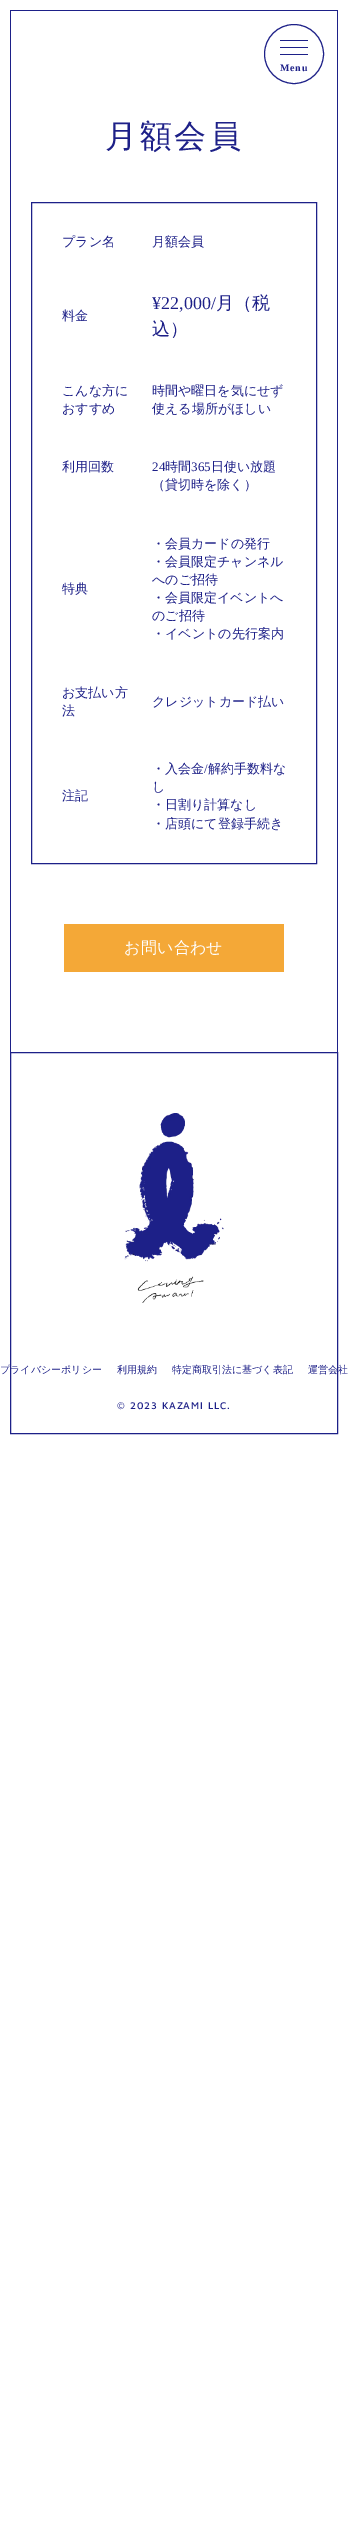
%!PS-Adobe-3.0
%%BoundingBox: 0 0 348 2524
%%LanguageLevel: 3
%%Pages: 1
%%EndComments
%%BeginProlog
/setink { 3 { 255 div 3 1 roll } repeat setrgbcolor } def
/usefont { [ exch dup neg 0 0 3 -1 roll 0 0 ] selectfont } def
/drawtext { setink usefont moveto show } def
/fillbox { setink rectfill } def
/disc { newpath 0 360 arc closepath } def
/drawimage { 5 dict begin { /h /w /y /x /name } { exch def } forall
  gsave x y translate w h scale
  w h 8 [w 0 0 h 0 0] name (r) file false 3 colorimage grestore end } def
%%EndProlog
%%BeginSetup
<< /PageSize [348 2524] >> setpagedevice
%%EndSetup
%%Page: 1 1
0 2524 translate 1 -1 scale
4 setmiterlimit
0 0 348 2524 255 255 255 fillbox
29 32 136 setink
294 54 29.5 disc stroke
280 40 28 1 29 32 136 fillbox
280 47 28 1 29 32 136 fillbox
280 54 28 1 29 32 136 fillbox
/LiberationSerif-Bold 10 usefont
280 71 moveto 0.75 0 (Menu) ashow
10 10 328 1 29 32 136 fillbox
337 10 1 1042 29 32 136 fillbox
10 10 1 1042 29 32 136 fillbox
/WenQuanYiZenHei-Medium 32 usefont
105 147 moveto 2.5 0 (月額会員) ashow
31.5 202.5 285 661 rectstroke
(プラン名) 62 246 /WenQuanYiZenHei-Medium 13 29 32 136 drawtext
(月額会員) 152 246 /WenQuanYiZenHei-Medium 13 29 32 136 drawtext
(料金) 62 320 /WenQuanYiZenHei-Medium 13 29 32 136 drawtext
(¥22,000/) 152 309 /LiberationSerif-Regular 18 29 32 136 drawtext
(月（税) 216 309 /WenQuanYiZenHei-Medium 18 29 32 136 drawtext
(込）) 152 335 /WenQuanYiZenHei-Medium 18 29 32 136 drawtext
(こんな方に) 62 395 /WenQuanYiZenHei-Medium 13 29 32 136 drawtext
(おすすめ) 62 413 /WenQuanYiZenHei-Medium 13 29 32 136 drawtext
(時間や曜日を気にせず) 152 395 /WenQuanYiZenHei-Medium 13 29 32 136 drawtext
(使える場所がほしい) 152 413 /WenQuanYiZenHei-Medium 13 29 32 136 drawtext
(利用回数) 62 471 /WenQuanYiZenHei-Medium 13 29 32 136 drawtext
(24) 152 471 /LiberationSerif-Regular 13 29 32 136 drawtext
(時間) 165 471 /WenQuanYiZenHei-Medium 13 29 32 136 drawtext
(365) 191 471 /LiberationSerif-Regular 13 29 32 136 drawtext
(日使い放題) 211 471 /WenQuanYiZenHei-Medium 13 29 32 136 drawtext
(（貸切時を除く）) 152 489 /WenQuanYiZenHei-Medium 13 29 32 136 drawtext
(特典) 62 593 /WenQuanYiZenHei-Medium 13 29 32 136 drawtext
(・会員カードの発行) 152 548 /WenQuanYiZenHei-Medium 13 29 32 136 drawtext
(・会員限定チャンネル) 152 566 /WenQuanYiZenHei-Medium 13 29 32 136 drawtext
(へのご招待) 152 584 /WenQuanYiZenHei-Medium 13 29 32 136 drawtext
(・会員限定イベントへ) 152 602 /WenQuanYiZenHei-Medium 13 29 32 136 drawtext
(のご招待) 152 620 /WenQuanYiZenHei-Medium 13 29 32 136 drawtext
(・イベントの先行案内) 152 638 /WenQuanYiZenHei-Medium 13 29 32 136 drawtext
(お支払い方) 62 697 /WenQuanYiZenHei-Medium 13 29 32 136 drawtext
(法) 62 715 /WenQuanYiZenHei-Medium 13 29 32 136 drawtext
(クレジットカード払い) 152 706 /WenQuanYiZenHei-Medium 13 29 32 136 drawtext
(注記) 62 800 /WenQuanYiZenHei-Medium 13 29 32 136 drawtext
(・入会金) 152 773 /WenQuanYiZenHei-Medium 13 29 32 136 drawtext
(/) 204 773 /LiberationSerif-Regular 13 29 32 136 drawtext
(解約手数料な) 208 773 /WenQuanYiZenHei-Medium 13 29 32 136 drawtext
(し) 152 791 /WenQuanYiZenHei-Medium 13 29 32 136 drawtext
(・日割り計算なし) 152 809 /WenQuanYiZenHei-Medium 13 29 32 136 drawtext
(・店頭にて登録手続き) 152 828 /WenQuanYiZenHei-Medium 13 29 32 136 drawtext
64 924 220 48 244 168 55 fillbox
/WenQuanYiZenHei-Medium 16 usefont
255 255 255 setink
124 953 moveto 0.25 0 (お問い合わせ) ashow
29 32 136 setink
10.5 1052.5 327 381 rectstroke
(assets/img1.rgb) 124 1113 100 190 drawimage
(プライバシーポリシー) 0 1373 /WenQuanYiZenHei-Medium 10 29 32 136 drawtext
(利用規約) 117 1373 /WenQuanYiZenHei-Medium 10 29 32 136 drawtext
(特定商取引法に基づく表記) 172 1373 /WenQuanYiZenHei-Medium 10 29 32 136 drawtext
(運営会社) 308 1373 /WenQuanYiZenHei-Medium 10 29 32 136 drawtext
/MavenPro-Medium 10 usefont
117 1409 moveto 1 0 32 0.75 0 (© 2023 KAZAMI LLC.) awidthshow
showpage
%%EOF
